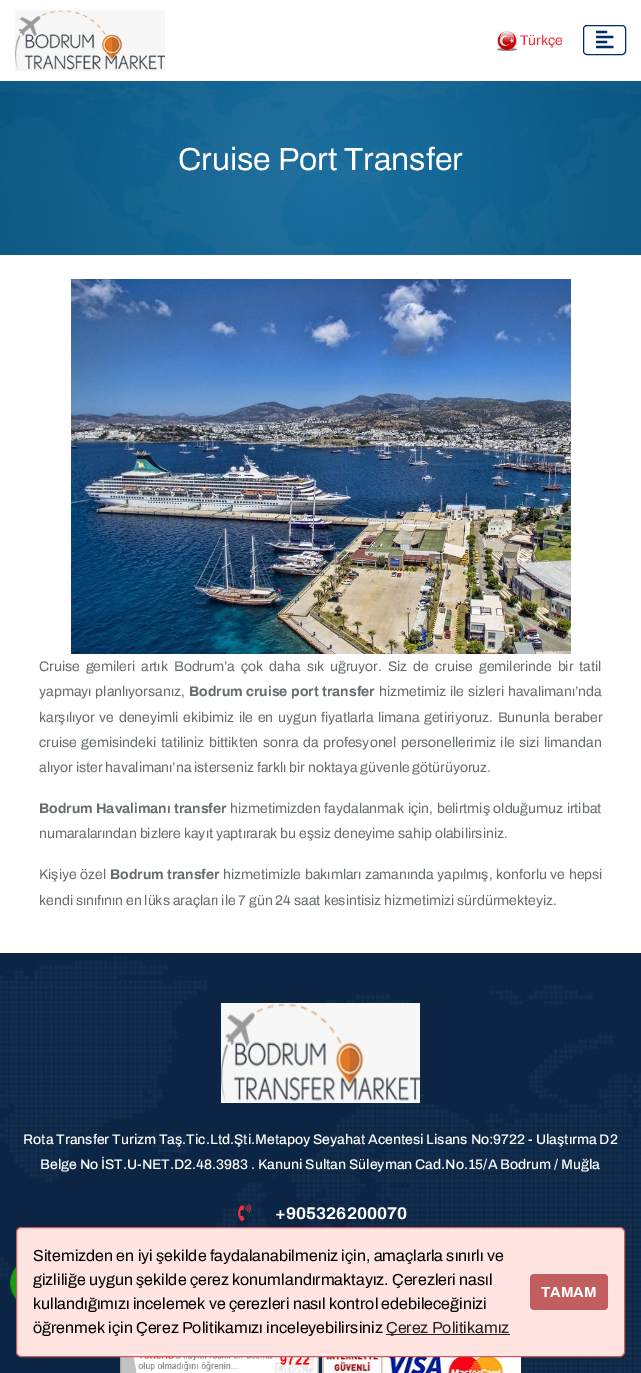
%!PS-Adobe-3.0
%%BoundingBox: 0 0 641 1373
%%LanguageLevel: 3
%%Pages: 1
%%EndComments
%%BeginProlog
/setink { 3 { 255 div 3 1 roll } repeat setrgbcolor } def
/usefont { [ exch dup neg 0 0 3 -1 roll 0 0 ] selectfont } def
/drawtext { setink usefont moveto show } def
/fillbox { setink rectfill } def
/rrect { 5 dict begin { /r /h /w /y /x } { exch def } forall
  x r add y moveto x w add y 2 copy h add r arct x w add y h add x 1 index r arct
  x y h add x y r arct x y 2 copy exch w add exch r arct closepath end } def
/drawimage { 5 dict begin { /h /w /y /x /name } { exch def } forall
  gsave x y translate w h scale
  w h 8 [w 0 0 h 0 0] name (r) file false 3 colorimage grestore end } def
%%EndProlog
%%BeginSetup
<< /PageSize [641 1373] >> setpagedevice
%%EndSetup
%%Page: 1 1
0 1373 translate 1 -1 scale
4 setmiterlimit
0 0 641 1373 255 255 255 fillbox
(assets/img1.rgb) 15 10 150 61 drawimage
(assets/img2.rgb) 497 31 20 20 drawimage
(Türkçe) 520 45 /Archivo-Regular 14 239 49 57 drawtext
2 45 98 setink
583.5 25.5 42 29 3.5 rrect stroke
(assets/img3.rgb) 596 30 18 19 drawimage
(assets/img4.rgb) 0 81 641 174 drawimage
(Cruise Port Transfer) 178 170 /Archivo-Regular 32 255 255 255 drawtext
(assets/img5.rgb) 71 279 500 375 drawimage
/Archivo-Regular 14 usefont
103 108 113 setink
39 671 moveto 3.1 0 32 (Cruise gemileri artık Bodrum’a çok daha sık uğruyor. Siz de cruise gemilerinde bir tatil) widthshow
39 696 moveto 1 0 32 (yapmayı planlıyorsanız,) widthshow
/Archivo-Bold 14 usefont
189 696 moveto 1 0 32 (Bodrum cruise port transfer) widthshow
/Archivo-Regular 14 usefont
379 696 moveto 1 0 32 (hizmetimiz ile sizleri havalimanı’nda) widthshow
39 722 moveto 1.75 0 32 (karşılıyor ve deneyimli ekibimiz ile en uygun fiyatlarla limana getiriyoruz. Bununla beraber) widthshow
39 747 moveto 1.75 0 32 (cruise gemisindeki tatiliniz bittikten sonra da profesyonel personellerimiz ile sizi limandan) widthshow
(alıyor ister havalimanı’na isterseniz farklı bir noktaya güvenle götürüyoruz.) 39 772 /Archivo-Regular 14 103 108 113 drawtext
/Archivo-Bold 14 usefont
39 813 moveto 0.75 0 32 (Bodrum Havalimanı transfer) widthshow
/Archivo-Regular 14 usefont
230 813 moveto 0.75 0 32 (hizmetimizden faydalanmak için, belirtmiş olduğumuz irtibat) widthshow
(numaralarından bizlere kayıt yaptırarak bu eşsiz deneyime sahip olabilirsiniz.) 39 838 /Archivo-Regular 14 103 108 113 drawtext
39 879 moveto 0.75 0 32 (Kişiye özel) widthshow
/Archivo-Bold 14 usefont
110 879 moveto 0.75 0 32 (Bodrum transfer) widthshow
/Archivo-Regular 14 usefont
223 879 moveto 0.75 0 32 (hizmetimizle bakımları zamanında yapılmış, konforlu ve hepsi) widthshow
(kendi sınıfının en lüks araçları ile 7 gün 24 saat kesintisiz hizmetimizi sürdürmekteyiz.) 39 905 /Archivo-Regular 14 103 108 113 drawtext
(assets/img6.rgb) 0 953 641 420 drawimage
(assets/img7.rgb) 221 1003 199 100 drawimage
(Rota Transfer Turizm Taş.Tic.Ltd.Şti.Metapoy Seyahat Acentesi Lisans No:9722 - Ulaştırma D2) 23 1144 /Archivo-Medium 14 255 255 255 drawtext
(Belge No İST.U-NET.D2.48.3983 . Kanuni Sultan Süleyman Cad.No.15/A Bodrum / Muğla) 40 1169 /Archivo-Medium 14 255 255 255 drawtext
(assets/img8.rgb) 238 1204 13 18 drawimage
(+905326200070) 275 1219 /Archivo-Bold 17 255 255 255 drawtext
(assets/img9.rgb) 120 1357 199 16 drawimage
(assets/img10.rgb) 322 1357 199 16 drawimage
(assets/img11.rgb) 10 1266 6 34 drawimage
255 228 225 setink
16.5 1227.5 608 129 4.5 rrect gsave fill grestore
194 94 94 setink
stroke
(Sitemizden en iyi şekilde faydalanabilmeniz için, amaçlarla sınırlı ve) 33 1261 /Archivo-Regular 16 0 0 0 drawtext
(gizliliğe uygun şekilde çerez konumlandırmaktayız. Çerezleri nasıl) 33 1285 /Archivo-Regular 16 0 0 0 drawtext
(kullandığımızı incelemek ve çerezleri nasıl kontrol edebileceğinizi) 33 1309 /Archivo-Regular 16 0 0 0 drawtext
(öğrenmek için Çerez Politikamızı inceleyebilirsiniz) 33 1333 /Archivo-Regular 16 0 0 0 drawtext
386 1334 124 1 38 34 34 fillbox
(Çerez Politikamız) 386 1333 /Archivo-Regular 16 38 34 34 drawtext
194 94 94 setink
530 1274 78 36 4 rrect fill
(TAMAM) 541 1297 /Archivo-Bold 14.5 255 255 255 drawtext
showpage
%%EOF
